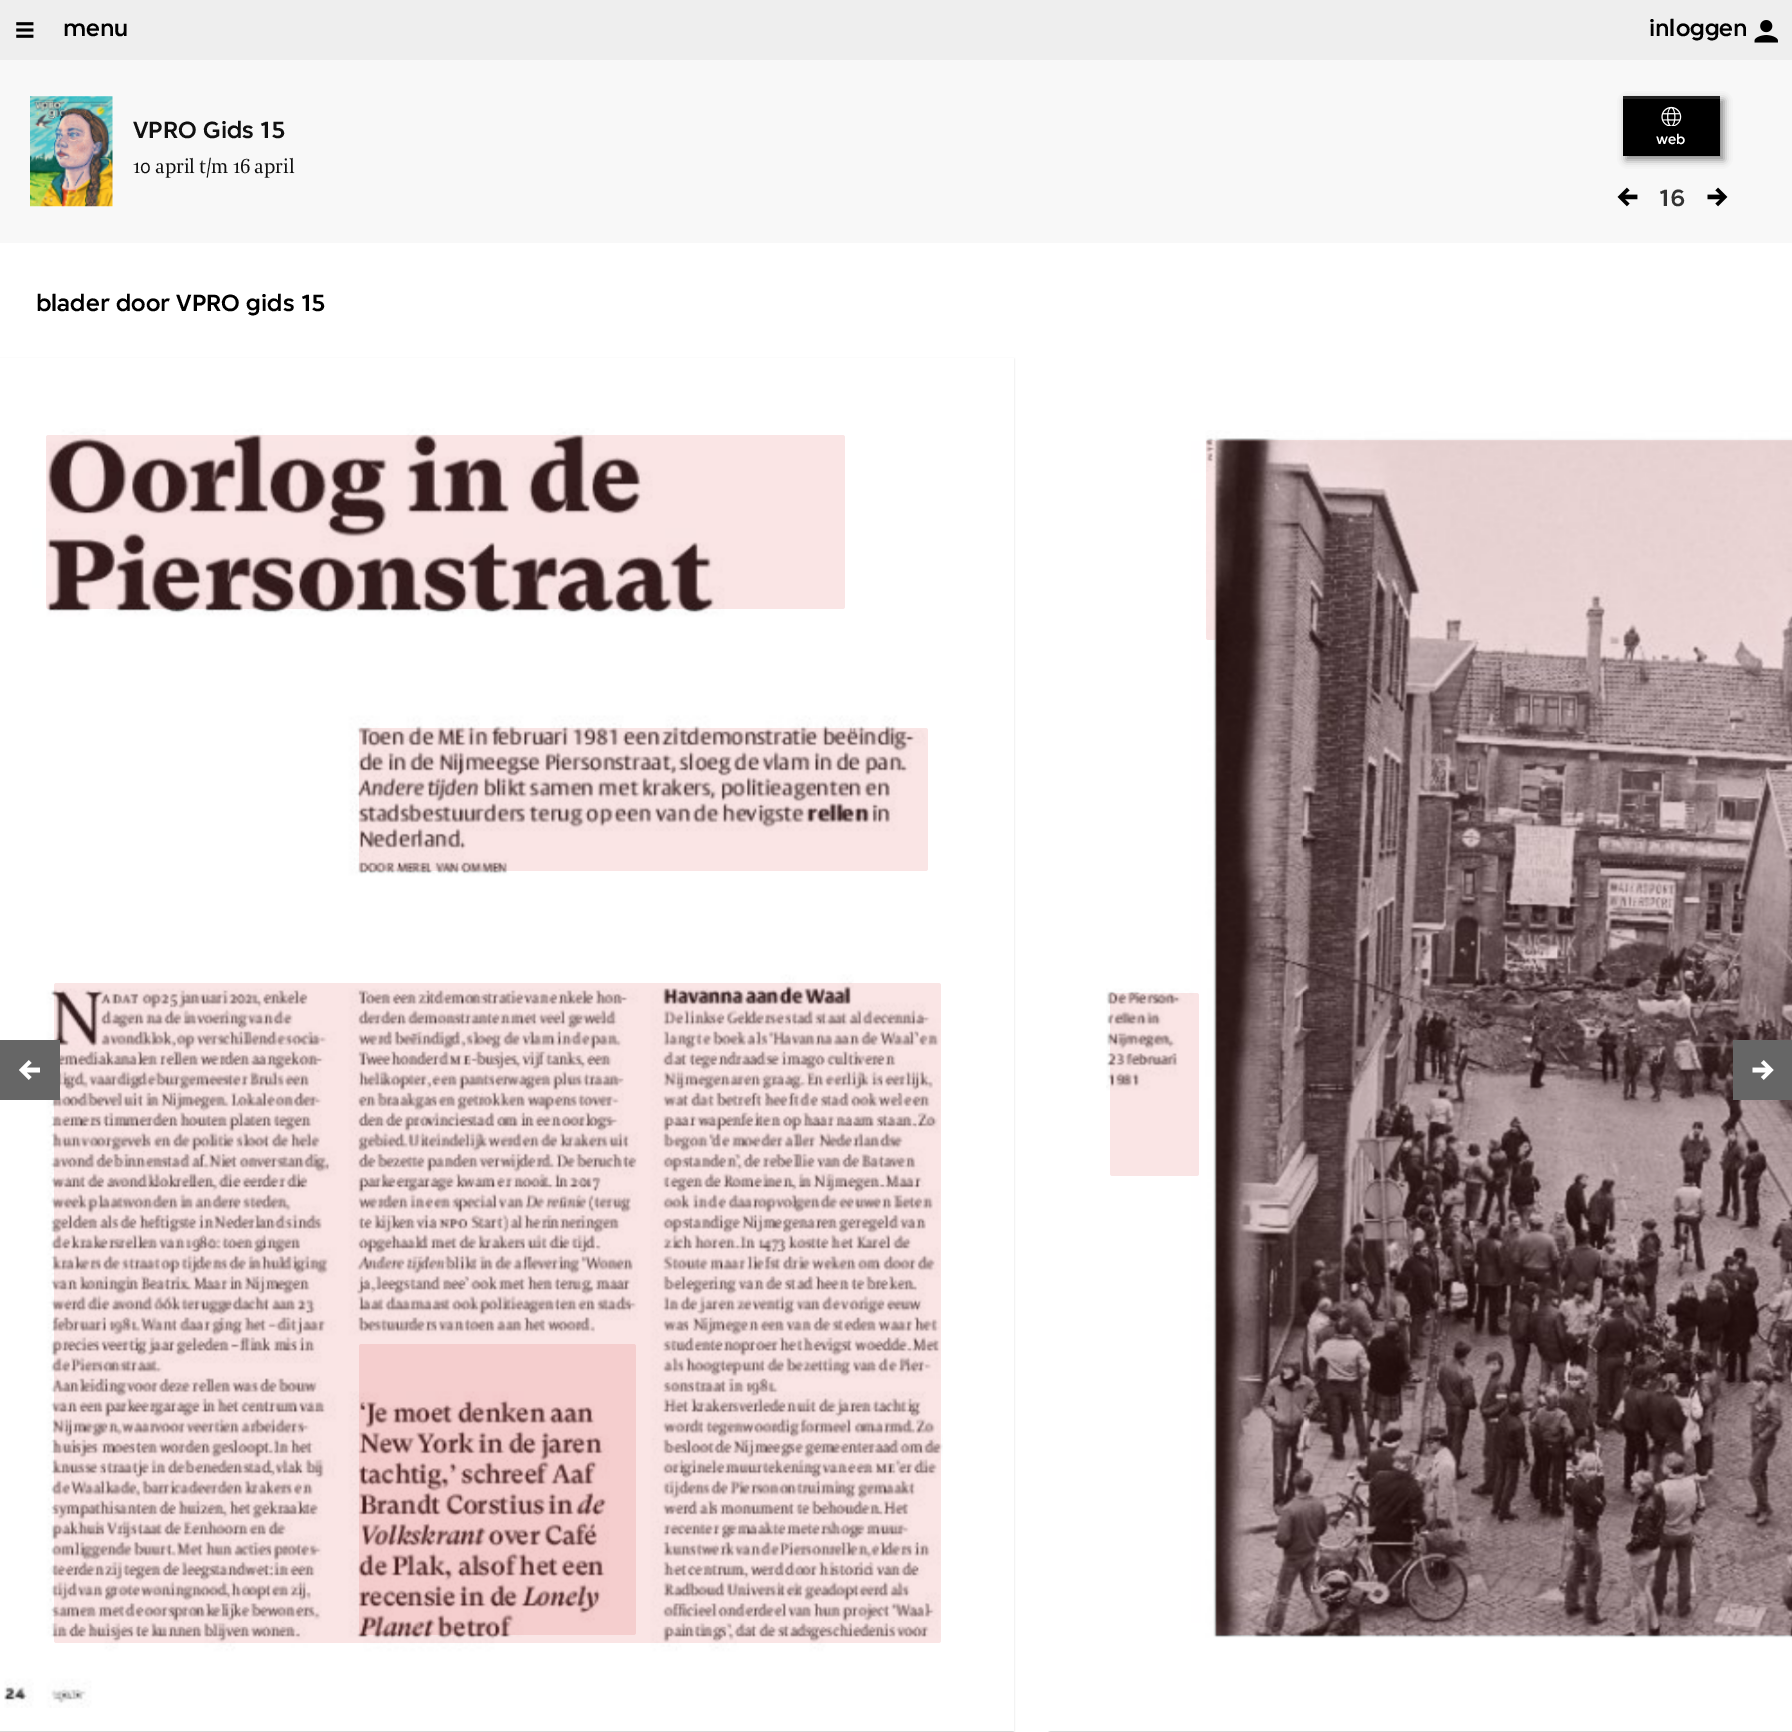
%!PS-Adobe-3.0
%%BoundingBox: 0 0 1792 1732
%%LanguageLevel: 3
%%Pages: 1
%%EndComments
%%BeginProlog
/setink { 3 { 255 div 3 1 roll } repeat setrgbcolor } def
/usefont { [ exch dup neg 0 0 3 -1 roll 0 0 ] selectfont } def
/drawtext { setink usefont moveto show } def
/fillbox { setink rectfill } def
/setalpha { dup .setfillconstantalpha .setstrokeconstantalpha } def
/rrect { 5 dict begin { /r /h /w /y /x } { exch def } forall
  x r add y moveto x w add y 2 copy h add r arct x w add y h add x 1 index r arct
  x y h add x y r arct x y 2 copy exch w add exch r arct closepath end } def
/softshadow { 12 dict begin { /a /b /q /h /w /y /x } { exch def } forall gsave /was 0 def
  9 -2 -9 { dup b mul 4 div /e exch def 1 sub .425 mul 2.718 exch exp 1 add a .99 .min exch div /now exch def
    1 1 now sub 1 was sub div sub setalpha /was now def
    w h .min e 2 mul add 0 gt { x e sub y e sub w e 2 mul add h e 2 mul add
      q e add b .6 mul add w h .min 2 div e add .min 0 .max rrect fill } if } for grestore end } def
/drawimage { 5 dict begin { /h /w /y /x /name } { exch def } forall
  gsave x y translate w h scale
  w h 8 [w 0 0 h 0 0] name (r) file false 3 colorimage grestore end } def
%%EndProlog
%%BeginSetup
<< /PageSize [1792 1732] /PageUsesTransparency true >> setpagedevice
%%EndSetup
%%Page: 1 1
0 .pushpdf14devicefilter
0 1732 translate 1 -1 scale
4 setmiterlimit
0 0 1792 1732 255 255 255 fillbox
0 0 1792 60 238 238 238 fillbox
(assets/img1.rgb) 16 22 18 16 drawimage
(menu) 63 36 /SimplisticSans-Medium 25 0 0 0 drawtext
(inloggen) 1649 36 /SimplisticSans-Medium 25 0 0 0 drawtext
(assets/img2.rgb) 1754 20 24 23 drawimage
0 60 1792 183 248 248 248 fillbox
(assets/img3.rgb) 30 96 83 111 drawimage
(VPRO Gids 15) 133 138 /SimplisticSans-Medium 25 17 17 17 drawtext
(10 april t/m 16 april) 133 173 /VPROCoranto-Regular 20 17 17 17 drawtext
136 136 136 setink
1626 100 98 60 0 4 1 softshadow
1623 99 97 57 0 0 0 fillbox
1623 96 97 3 34 34 34 fillbox
(assets/img4.rgb) 1661 106 21 20 drawimage
(web) 1656 144 /SimplisticSans-Medium 15 255 255 255 drawtext
(assets/img5.rgb) 1617 187 21 20 drawimage
(16) 1659 206 /SimplisticSans-Medium 25 51 51 51 drawtext
(assets/img6.rgb) 1707 187 21 20 drawimage
(blader door VPRO gids 15) 36 311 /SimplisticSans-Medium 25 0 0 0 drawtext
-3 359 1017 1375 0 1 0.15 softshadow
0 358 1014 1373 255 255 255 fillbox
(assets/img7.rgb) 4 428 939 1280 drawimage
0.1 setalpha
204 0 0 setink
46 435 799 174 2.5 rrect fill
359 728 569 143 2.5 rrect fill
54 983 887 660 2.5 rrect fill
359 1344 277 291 2.5 rrect fill
gsave
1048 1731 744 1 rectclip
1 setalpha
0 0 0 setink
1049 359 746 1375 0 1 0.15 softshadow
grestore
1 setalpha
(assets/img8.rgb) 1106 430 686 1208 drawimage
0.1 setalpha
1110 993 89 183 2.5 rrect fill
1206 440 10 200 2.5 rrect fill
1218.5 440 moveto 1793 440 lineto 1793 1635 lineto 1218.5 1635 lineto 1217 1635 1216 1634 1216 1632.5 curveto 1216 442.5 lineto 1216 441 1217 440 1218.5 440 curveto closepath fill
1 setalpha
0 1040 60 60 102 102 102 fillbox
(assets/img9.rgb) 19 1060 21 20 drawimage
1733 1040 59 60 102 102 102 fillbox
(assets/img10.rgb) 1752 1060 22 20 drawimage
.poppdf14devicefilter showpage
%%EOF
